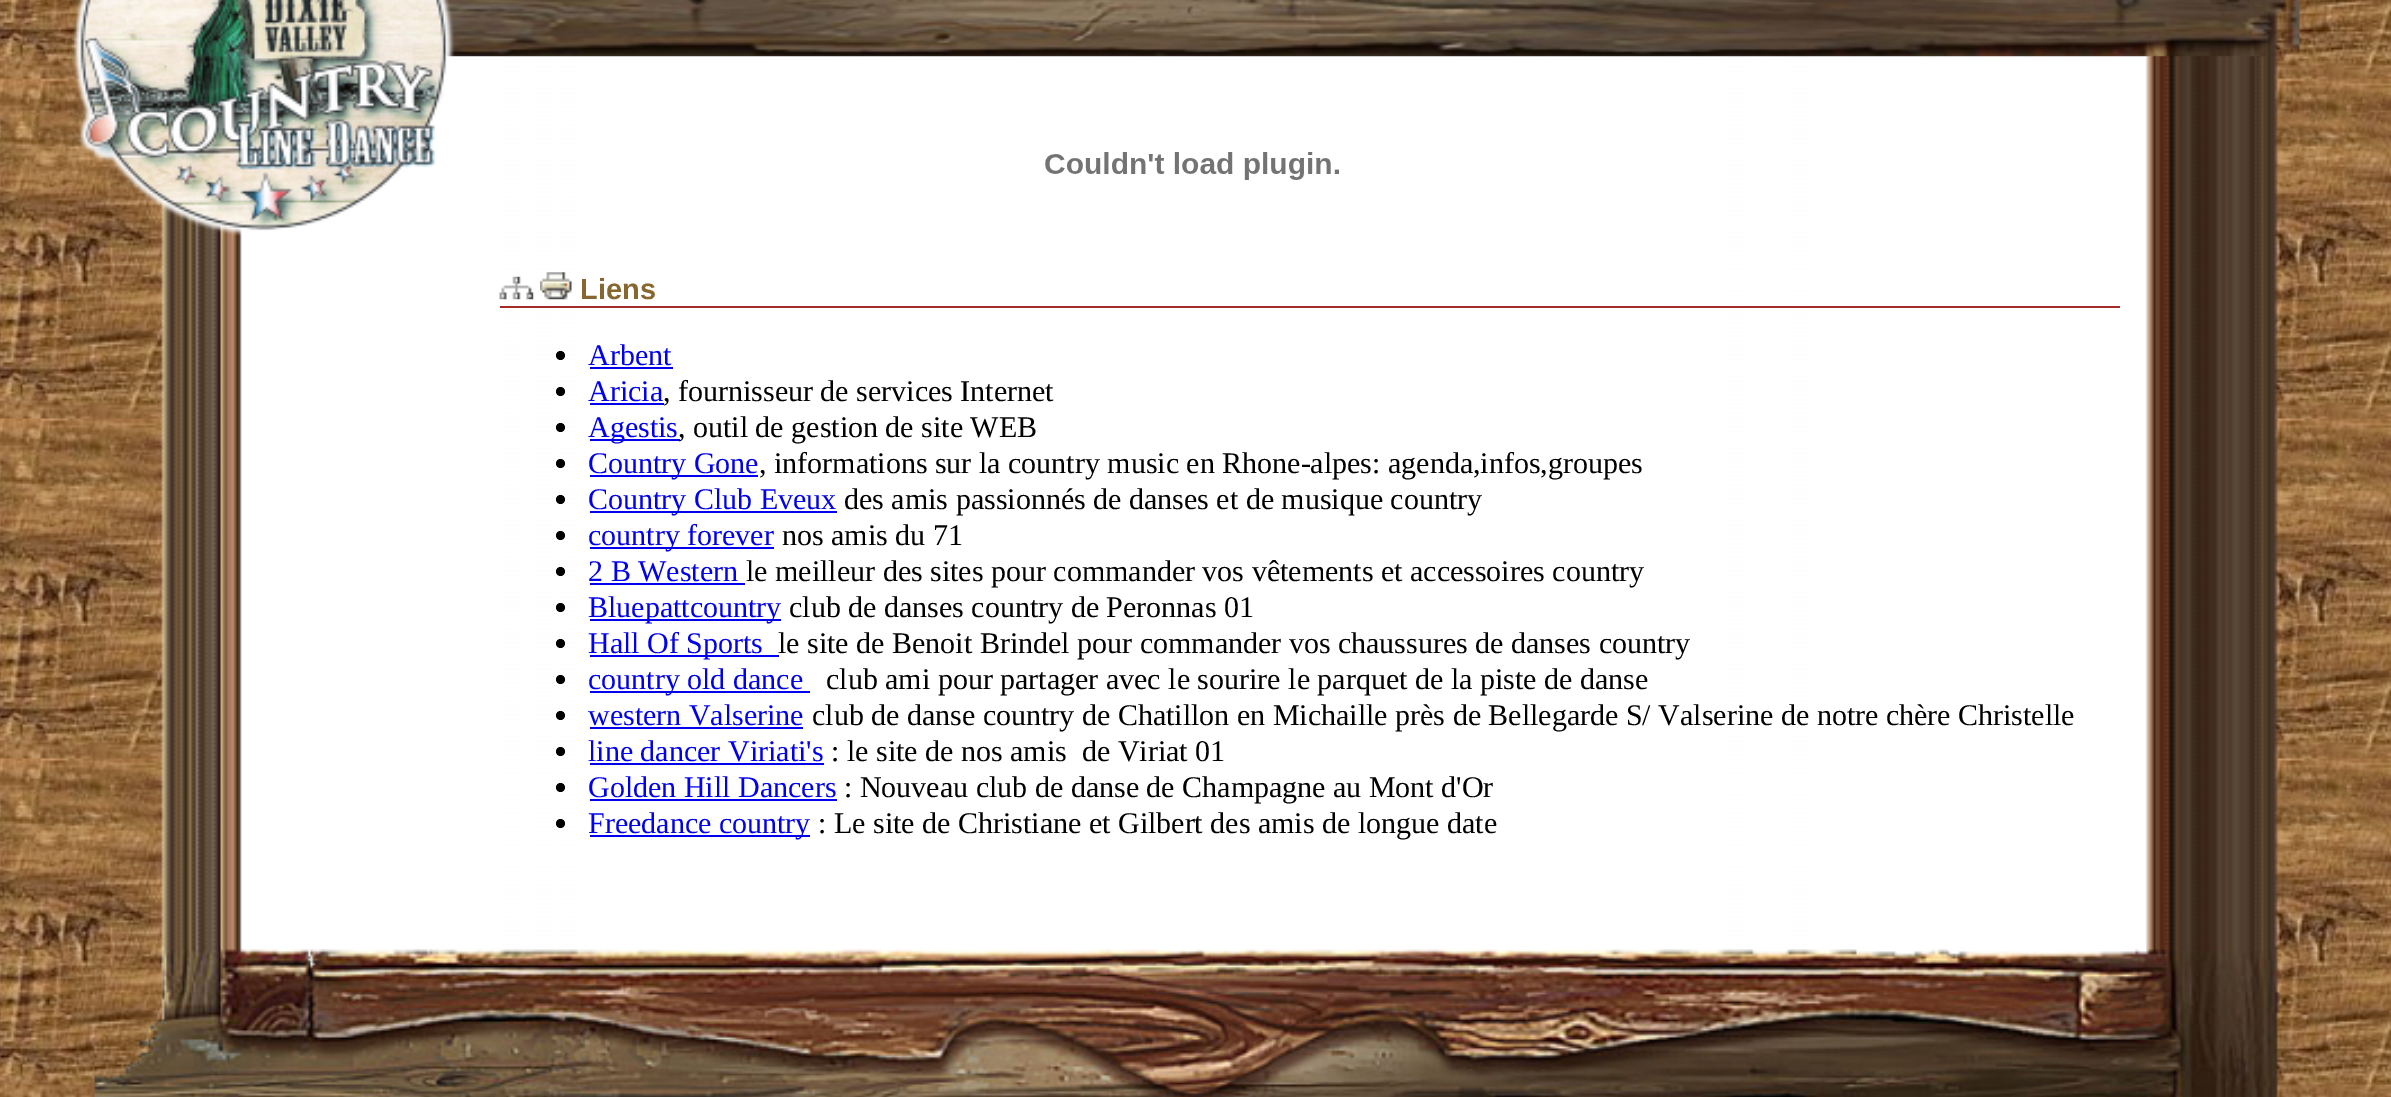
%!PS-Adobe-3.0
%%BoundingBox: 0 0 2391 1097
%%LanguageLevel: 3
%%Pages: 1
%%EndComments
%%BeginProlog
/setink { 3 { 255 div 3 1 roll } repeat setrgbcolor } def
/usefont { [ exch dup neg 0 0 3 -1 roll 0 0 ] selectfont } def
/drawtext { setink usefont moveto show } def
/fillbox { setink rectfill } def
/disc { newpath 0 360 arc closepath } def
/drawimage { 5 dict begin { /h /w /y /x /name } { exch def } forall
  gsave x y translate w h scale
  w h 8 [w 0 0 h 0 0] name (r) file false 3 colorimage grestore end } def
%%EndProlog
%%BeginSetup
<< /PageSize [2391 1097] >> setpagedevice
%%EndSetup
%%Page: 1 1
0 1097 translate 1 -1 scale
4 setmiterlimit
0 0 2391 1097 255 255 255 fillbox
(assets/img1.rgb) 0 0 2391 1097 drawimage
(assets/img2.rgb) 161 4 2117 1093 drawimage
(assets/img4.rgb) 438 0 1862 57 drawimage
(assets/img3.rgb) 72 0 383 236 drawimage
(assets/img5.rgb) 1045 152 294 28 drawimage
500 306 1620 2 165 42 42 fillbox
(assets/img6.rgb) 499 276 35 24 drawimage
(assets/img7.rgb) 540 272 32 28 drawimage
(Liens) 580 299 /LiberationSans-Bold 29 135 103 47 drawtext
0 0 0 setink
560.5 355.5 4.5 disc fill
(Arbent) 588 365 /LiberationSerif-Regular 30 0 0 238 drawtext
590 367 83 2 0 0 238 fillbox
0 0 0 setink
560.5 391.5 4.5 disc fill
(Aricia) 588 401 /LiberationSerif-Regular 30 0 0 238 drawtext
590 403 74 2 0 0 238 fillbox
(, fournisseur de services Internet) 663 401 /LiberationSerif-Regular 30 0 0 0 drawtext
560.5 427.5 4.5 disc fill
590 439 90 2 0 0 238 fillbox
(Agestis) 588 437 /LiberationSerif-Regular 30 0 0 238 drawtext
(, outil de gestion de site WEB) 678 437 /LiberationSerif-Regular 30 0 0 0 drawtext
560.5 463.5 4.5 disc fill
590 475 168 2 0 0 238 fillbox
(Country Gone) 588 473 /LiberationSerif-Regular 30 0 0 238 drawtext
(, informations sur la country music en Rhone-alpes: agenda,infos,groupes) 759 473 /LiberationSerif-Regular 30 0 0 0 drawtext
560.5 499.5 4.5 disc fill
590 511 247 2 0 0 238 fillbox
(Country Club Eveux) 588 509 /LiberationSerif-Regular 30 0 0 238 drawtext
(des amis passionnés de danses et de musique country) 844 509 /LiberationSerif-Regular 30 0 0 0 drawtext
560.5 535.5 4.5 disc fill
590 547 184 2 0 0 238 fillbox
(country forever) 588 545 /LiberationSerif-Regular 30 0 0 238 drawtext
(nos amis du 71) 782 545 /LiberationSerif-Regular 30 0 0 0 drawtext
560.5 571.5 4.5 disc fill
(2 B Western) 588 581 /LiberationSerif-Regular 30 0 0 238 drawtext
590 583 155 2 0 0 238 fillbox
(le meilleur des sites pour commander vos vêtements et accessoires country) 746 581 /LiberationSerif-Regular 30 0 0 0 drawtext
560.5 607.5 4.5 disc fill
590 619 191 2 0 0 238 fillbox
(Bluepattcountry) 588 617 /LiberationSerif-Regular 30 0 0 238 drawtext
(club de danses country de Peronnas 01) 789 617 /LiberationSerif-Regular 30 0 0 0 drawtext
560.5 643.5 4.5 disc fill
590 655 189 2 0 0 238 fillbox
(Hall Of Sports) 588 653 /LiberationSerif-Regular 30 0 0 238 drawtext
(le site de Benoit Brindel pour commander vos chaussures de danses country) 778 653 /LiberationSerif-Regular 30 0 0 0 drawtext
560.5 679.5 4.5 disc fill
590 691 220 2 0 0 238 fillbox
(country old dance) 588 689 /LiberationSerif-Regular 30 0 0 238 drawtext
(club ami pour partager avec le sourire le parquet de la piste de danse) 826 689 /LiberationSerif-Regular 30 0 0 0 drawtext
560.5 715.5 4.5 disc fill
(western Valserine) 588 725 /LiberationSerif-Regular 30 0 0 238 drawtext
590 727 213 2 0 0 238 fillbox
(club de danse country de Chatillon en Michaille près de Bellegarde S/ Valserine de notre chère Christelle) 812 725 /LiberationSerif-Regular 30 0 0 0 drawtext
560.5 751.5 4.5 disc fill
(line dancer Viriati's) 588 761 /LiberationSerif-Regular 30 0 0 238 drawtext
590 763 234 2 0 0 238 fillbox
(: le site de nos amis  de Viriat 01) 831 761 /LiberationSerif-Regular 30 0 0 0 drawtext
560.5 787.5 4.5 disc fill
(Golden Hill Dancers) 588 797 /LiberationSerif-Regular 30 0 0 238 drawtext
590 799 247 2 0 0 238 fillbox
(: Nouveau club de danse de Champagne au Mont d'Or) 844 797 /LiberationSerif-Regular 30 0 0 0 drawtext
560.5 823.5 4.5 disc fill
590 835 220 2 0 0 238 fillbox
(Freedance country) 588 833 /LiberationSerif-Regular 30 0 0 238 drawtext
(: Le site de Christiane et Gilbert des amis de longue date) 818 833 /LiberationSerif-Regular 30 0 0 0 drawtext
(assets/img8.rgb) 94 947 2186 150 drawimage
showpage
%%EOF
